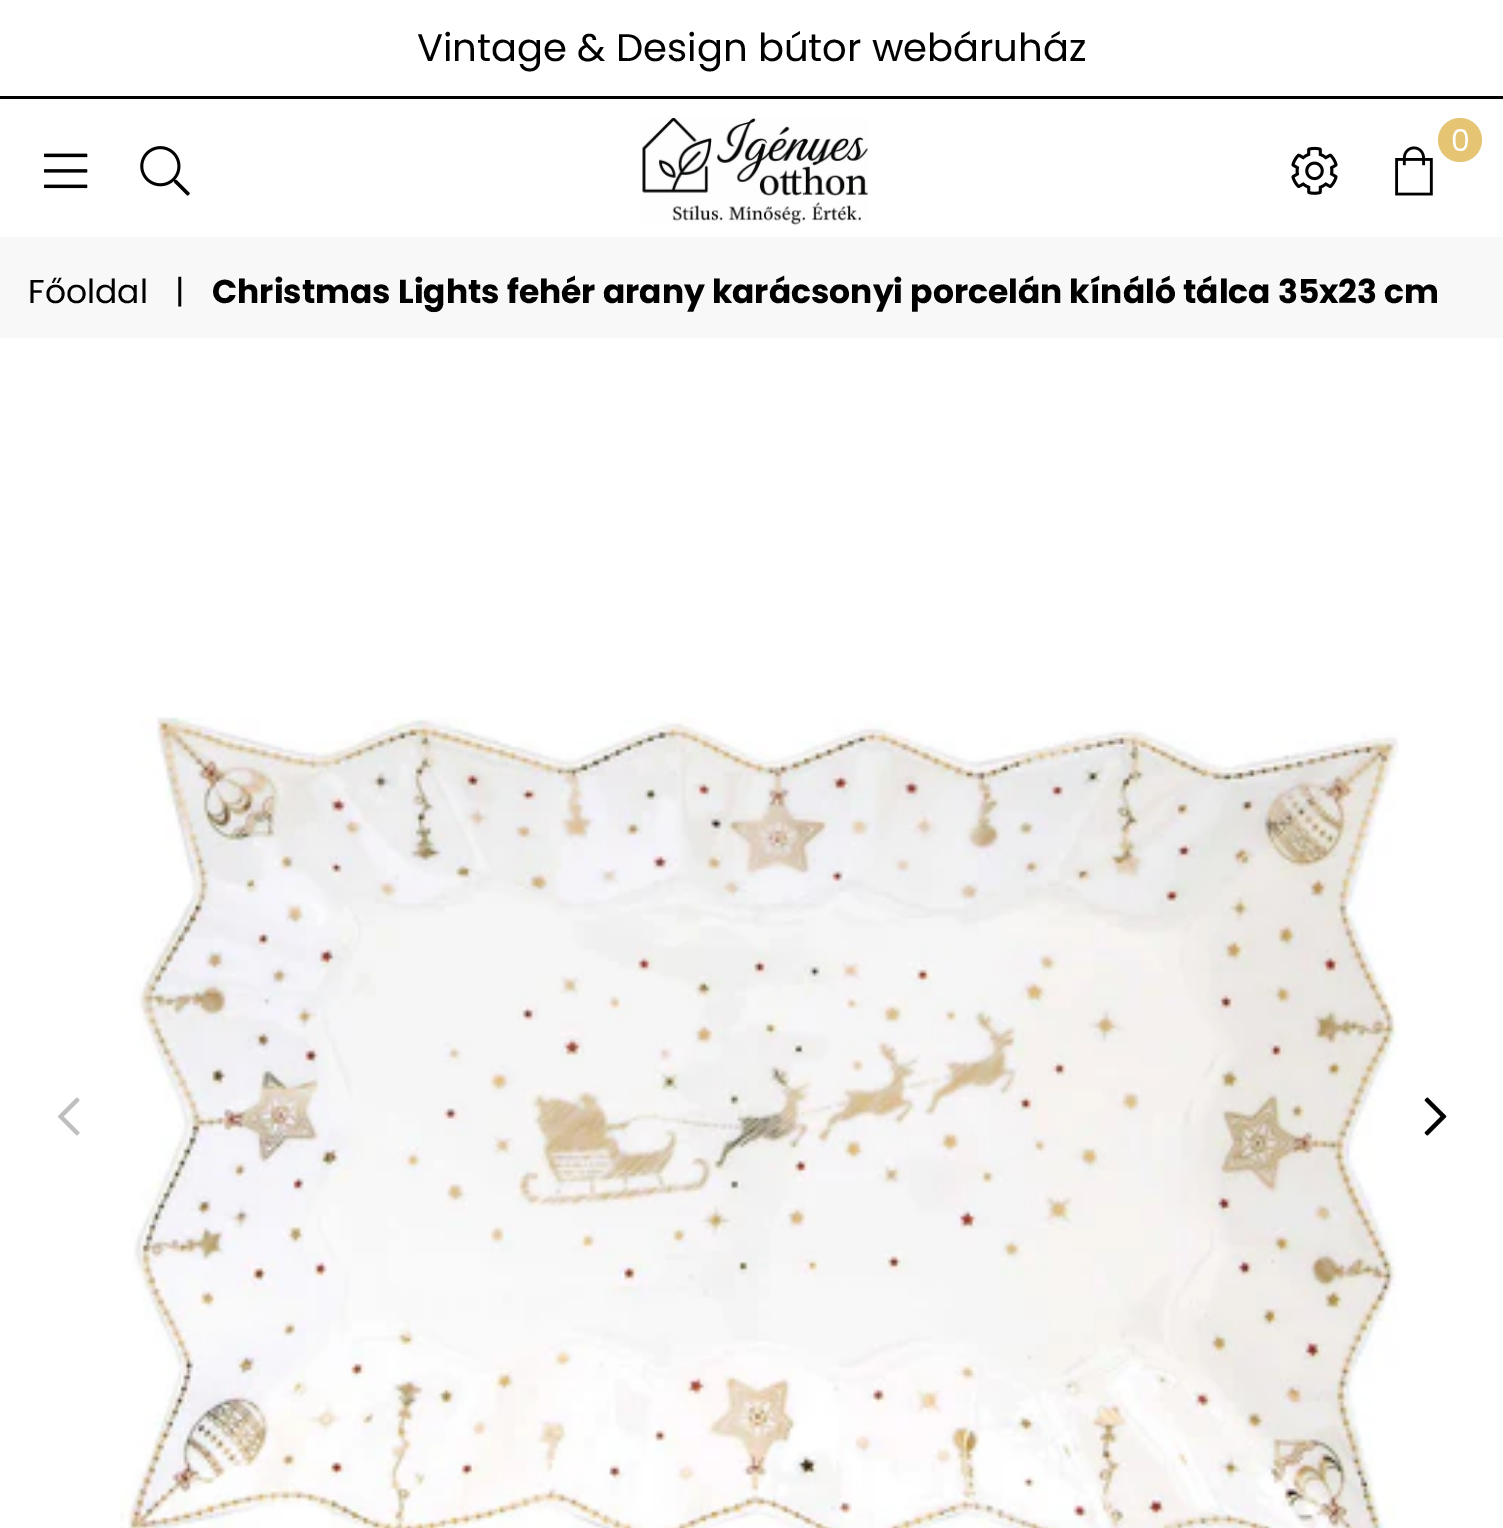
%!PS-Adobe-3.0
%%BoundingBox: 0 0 1503 1528
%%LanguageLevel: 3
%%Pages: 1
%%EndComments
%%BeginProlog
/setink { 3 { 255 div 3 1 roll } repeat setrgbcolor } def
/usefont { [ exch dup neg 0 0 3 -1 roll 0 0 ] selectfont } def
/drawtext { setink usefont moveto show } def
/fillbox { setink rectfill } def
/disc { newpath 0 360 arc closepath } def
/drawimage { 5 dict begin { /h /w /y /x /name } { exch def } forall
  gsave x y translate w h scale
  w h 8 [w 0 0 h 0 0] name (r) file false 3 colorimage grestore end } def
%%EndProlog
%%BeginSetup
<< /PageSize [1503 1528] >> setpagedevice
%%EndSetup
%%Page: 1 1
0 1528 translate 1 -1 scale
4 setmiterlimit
0 0 1503 1528 255 255 255 fillbox
0 96 1503 3 0 0 0 fillbox
(Vintage & Design bútor webáruház) 417 61 /Poppins-Regular 38.5 0 0 0 drawtext
(assets/img1.rgb) 642 117 227 108 drawimage
229 197 115 setink
1460 140 22 disc fill
(0) 1451 151 /Poppins-Regular 30 255 255 255 drawtext
(assets/img2.rgb) 1395 146 38 50 drawimage
(assets/img3.rgb) 1291 146 47 49 drawimage
(assets/img4.rgb) 44 153 44 36 drawimage
(assets/img5.rgb) 140 146 50 50 drawimage
0 237 1503 101 248 248 248 fillbox
(Főoldal) 28 303 /Poppins-Regular 33 0 0 0 drawtext
(|) 175 303 /Poppins-Regular 33 0 0 0 drawtext
(Christmas Lights fehér arany karácsonyi porcelán kínáló tálca 35x23 cm) 212 303 /Poppins-Bold 33 0 0 0 drawtext
(assets/img6.rgb) 58 1097 22 39 drawimage
(assets/img7.rgb) 120 717 1279 811 drawimage
(assets/img8.rgb) 1424 1097 23 39 drawimage
showpage
%%EOF
